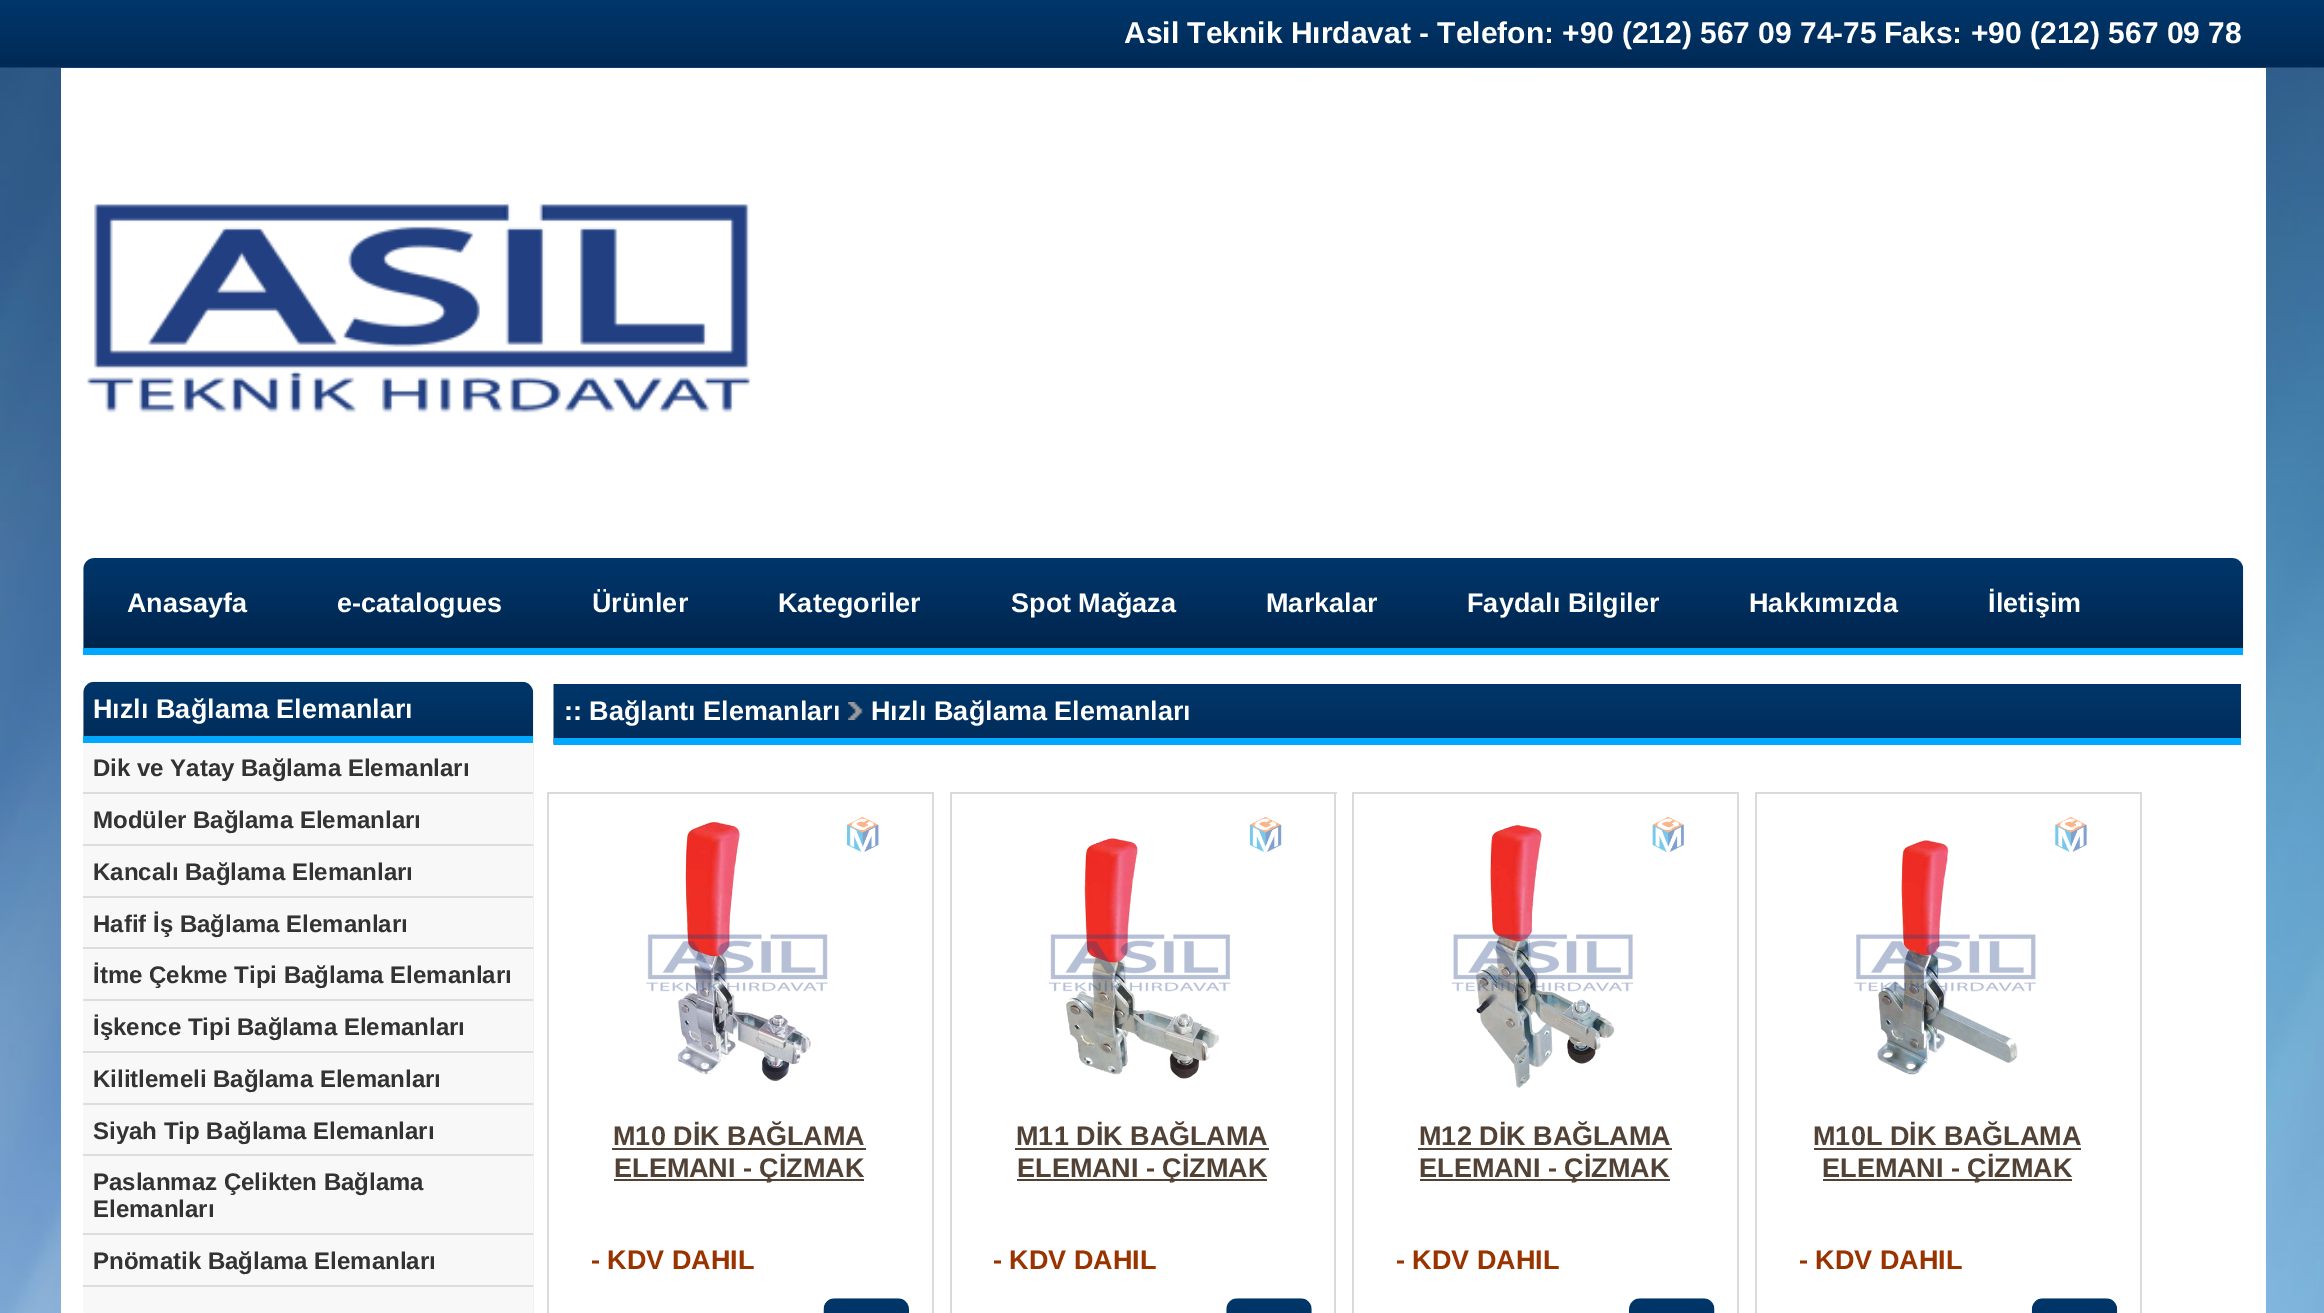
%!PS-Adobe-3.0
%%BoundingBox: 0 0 2324 1313
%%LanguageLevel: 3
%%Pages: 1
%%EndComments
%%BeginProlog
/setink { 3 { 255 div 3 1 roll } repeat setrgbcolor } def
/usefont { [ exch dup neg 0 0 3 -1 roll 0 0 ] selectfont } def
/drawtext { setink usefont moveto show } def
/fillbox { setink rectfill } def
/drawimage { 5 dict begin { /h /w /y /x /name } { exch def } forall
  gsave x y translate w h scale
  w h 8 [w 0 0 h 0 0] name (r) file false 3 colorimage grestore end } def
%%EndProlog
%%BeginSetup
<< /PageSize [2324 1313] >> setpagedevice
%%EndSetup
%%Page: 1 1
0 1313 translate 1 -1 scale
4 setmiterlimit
0 0 2324 1313 255 255 255 fillbox
(assets/img1.rgb) 0 67 2324 1246 drawimage
(assets/img2.rgb) 0 0 2324 68 drawimage
(Asil Teknik Hırdavat - Telefon: +90 \(212\) 567 09 74-75) 1124 43 /LiberationSans-Bold 30 255 255 255 drawtext
(Faks: +90 \(212\) 567 09 78) 1884 43 /LiberationSans-Bold 30 255 255 255 drawtext
61 68 2205 1245 255 255 255 fillbox
(assets/img3.rgb) 87 202 663 211 drawimage
(assets/img4.rgb) 83 558 2161 97 drawimage
83 648 2160 7 0 168 255 fillbox
(Anasayfa) 127 612 /LiberationSans-Bold 27 255 255 255 drawtext
(e-catalogues) 337 612 /LiberationSans-Bold 27 255 255 255 drawtext
(Ürünler) 592 612 /LiberationSans-Bold 27 255 255 255 drawtext
(Kategoriler) 778 612 /LiberationSans-Bold 27 255 255 255 drawtext
(Spot Mağaza) 1011 612 /LiberationSans-Bold 27 255 255 255 drawtext
(Markalar) 1266 612 /LiberationSans-Bold 27 255 255 255 drawtext
(Faydalı Bilgiler) 1467 612 /LiberationSans-Bold 27 255 255 255 drawtext
(Hakkımızda) 1749 612 /LiberationSans-Bold 27 255 255 255 drawtext
(İletişim) 1988 612 /LiberationSans-Bold 27 255 255 255 drawtext
(assets/img5.rgb) 83 681 451 632 drawimage
83 736 450 7 0 168 255 fillbox
(Hızlı Bağlama Elemanları) 93 718 /LiberationSans-Bold 27 255 255 255 drawtext
83 743 450 49 248 248 248 fillbox
83 792 450 2 221 221 221 fillbox
(Dik ve Yatay Bağlama Elemanları) 93 776 /LiberationSans-Bold 24 51 51 51 drawtext
83 794 450 50 248 248 248 fillbox
83 844 450 2 221 221 221 fillbox
(Modüler Bağlama Elemanları) 93 828 /LiberationSans-Bold 24 51 51 51 drawtext
83 846 450 50 248 248 248 fillbox
83 896 450 2 221 221 221 fillbox
(Kancalı Bağlama Elemanları) 93 880 /LiberationSans-Bold 24 51 51 51 drawtext
83 898 450 101 248 248 248 fillbox
83 947 450 2 221 221 221 fillbox
(Hafif İş Bağlama Elemanları) 93 932 /LiberationSans-Bold 24 51 51 51 drawtext
83 999 450 2 221 221 221 fillbox
(İtme Çekme Tipi Bağlama Elemanları) 93 983 /LiberationSans-Bold 24 51 51 51 drawtext
83 1001 450 50 248 248 248 fillbox
83 1051 450 2 221 221 221 fillbox
(İşkence Tipi Bağlama Elemanları) 93 1035 /LiberationSans-Bold 24 51 51 51 drawtext
83 1053 450 50 248 248 248 fillbox
83 1103 450 2 221 221 221 fillbox
(Kilitlemeli Bağlama Elemanları) 93 1087 /LiberationSans-Bold 24 51 51 51 drawtext
83 1105 450 128 248 248 248 fillbox
83 1154 450 2 221 221 221 fillbox
(Siyah Tip Bağlama Elemanları) 93 1139 /LiberationSans-Bold 24 51 51 51 drawtext
83 1233 450 2 221 221 221 fillbox
(Paslanmaz Çelikten Bağlama) 93 1190 /LiberationSans-Bold 24 51 51 51 drawtext
(Elemanları) 93 1217 /LiberationSans-Bold 24 51 51 51 drawtext
83 1235 450 50 248 248 248 fillbox
83 1285 450 2 221 221 221 fillbox
(Pnömatik Bağlama Elemanları) 93 1269 /LiberationSans-Bold 24 51 51 51 drawtext
83 1287 450 26 248 248 248 fillbox
(assets/img6.rgb) 553 684 1688 61 drawimage
554 738 1687 7 0 168 255 fillbox
(:: Bağlantı Elemanları) 564 720 /LiberationSans-Bold 27 255 255 255 drawtext
(assets/img7.rgb) 848 702 15 18 drawimage
(Hızlı Bağlama Elemanları) 871 720 /LiberationSans-Bold 27 255 255 255 drawtext
547 792 387 2 218 218 218 fillbox
932 792 2 521 218 218 218 fillbox
547 792 2 521 218 218 218 fillbox
(assets/img8.rgb) 646 817 233 267 drawimage
(M10 DİK BAĞLAMA) 613 1145 /LiberationSans-Bold 27 82 66 54 drawtext
612 1148 254 2 82 66 54 fillbox
614 1179 250 2 82 66 54 fillbox
(ELEMANI - ÇİZMAK) 614 1177 /LiberationSans-Bold 27 82 66 54 drawtext
(- KDV DAHIL) 591 1269 /LiberationSans-Bold 27 153 51 0 drawtext
(assets/img9.rgb) 823 1298 86 15 drawimage
950 792 387 2 218 218 218 fillbox
1334 792 2 521 218 218 218 fillbox
950 792 2 521 218 218 218 fillbox
(assets/img10.rgb) 1048 817 234 262 drawimage
(M11 DİK BAĞLAMA) 1016 1145 /LiberationSans-Bold 27 82 66 54 drawtext
1015 1148 254 2 82 66 54 fillbox
1017 1179 250 2 82 66 54 fillbox
(ELEMANI - ÇİZMAK) 1017 1177 /LiberationSans-Bold 27 82 66 54 drawtext
(- KDV DAHIL) 993 1269 /LiberationSans-Bold 27 153 51 0 drawtext
(assets/img11.rgb) 1226 1298 86 15 drawimage
1352 792 387 2 218 218 218 fillbox
1737 792 2 521 218 218 218 fillbox
1352 792 2 521 218 218 218 fillbox
(assets/img12.rgb) 1451 817 233 271 drawimage
(M12 DİK BAĞLAMA) 1419 1145 /LiberationSans-Bold 27 82 66 54 drawtext
1418 1148 254 2 82 66 54 fillbox
1420 1179 250 2 82 66 54 fillbox
(ELEMANI - ÇİZMAK) 1419 1177 /LiberationSans-Bold 27 82 66 54 drawtext
(- KDV DAHIL) 1396 1269 /LiberationSans-Bold 27 153 51 0 drawtext
(assets/img13.rgb) 1629 1298 86 15 drawimage
1755 792 387 2 218 218 218 fillbox
2140 792 2 521 218 218 218 fillbox
1755 792 2 521 218 218 218 fillbox
(assets/img14.rgb) 1854 817 233 258 drawimage
(M10L DİK BAĞLAMA) 1813 1145 /LiberationSans-Bold 27 82 66 54 drawtext
1814 1148 267 2 82 66 54 fillbox
1823 1179 249 2 82 66 54 fillbox
(ELEMANI - ÇİZMAK) 1822 1177 /LiberationSans-Bold 27 82 66 54 drawtext
(- KDV DAHIL) 1799 1269 /LiberationSans-Bold 27 153 51 0 drawtext
(assets/img15.rgb) 2031 1298 87 15 drawimage
showpage
%%EOF
